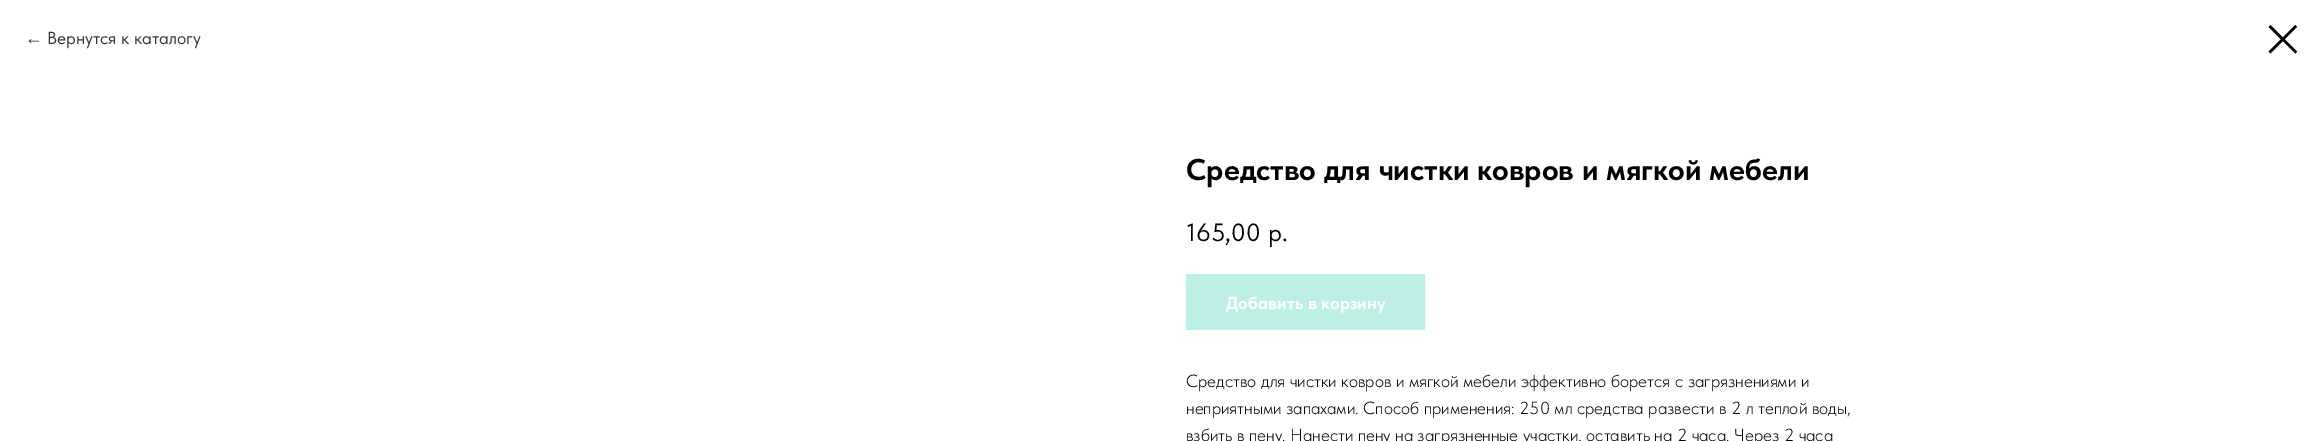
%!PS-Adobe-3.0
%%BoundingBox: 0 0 2322 441
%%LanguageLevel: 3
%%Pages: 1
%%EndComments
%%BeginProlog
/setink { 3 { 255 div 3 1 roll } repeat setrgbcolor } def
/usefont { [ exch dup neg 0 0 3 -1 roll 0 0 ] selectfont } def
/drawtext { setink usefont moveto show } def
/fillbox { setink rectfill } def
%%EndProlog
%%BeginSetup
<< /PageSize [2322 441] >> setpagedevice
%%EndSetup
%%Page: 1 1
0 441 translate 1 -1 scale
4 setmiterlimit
0 0 2322 441 255 255 255 fillbox
(←) 25 44 /LiberationSans-Regular 17.5 51 51 51 drawtext
(Вернутся к каталогу) 47 44 /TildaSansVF-Regular 17.5 51 51 51 drawtext
0 0 0 setink
2268.5 27 moveto 2270.5 25 lineto 2297 51.5 lineto 2295.5 53.5 lineto closepath eofill
2295.5 25 moveto 2297 27 lineto 2270.5 53.5 lineto 2268.5 51.5 lineto closepath eofill
(Средство для чистки ковров и мягкой мебели) 1186 180 /TildaSansVF-Bold 30 0 0 0 drawtext
(165,00) 1186 241 /TildaSansVF-Regular 25 0 0 0 drawtext
(р.) 1268 241 /TildaSansVF-Regular 25 0 0 0 drawtext
1186 274 239 56 190 239 231 fillbox
(Добавить в корзину) 1226 309 /TildaSansVF-Bold 17.5 255 255 255 drawtext
(Средство для чистки ковров и мягкой мебели эффективно борется с загрязнениями и) 1186 387 /TildaSansVF-Light 17.5 0 0 0 drawtext
(неприятными запахами. Способ применения: 250 мл средства развести в 2 л теплой воды,) 1186 414 /TildaSansVF-Light 17.5 0 0 0 drawtext
(взбить в пену. Нанести пену на загрязненные участки, оставить на 2 часа. Через 2 часа) 1186 441 /TildaSansVF-Light 17.5 0 0 0 drawtext
showpage
%%EOF
